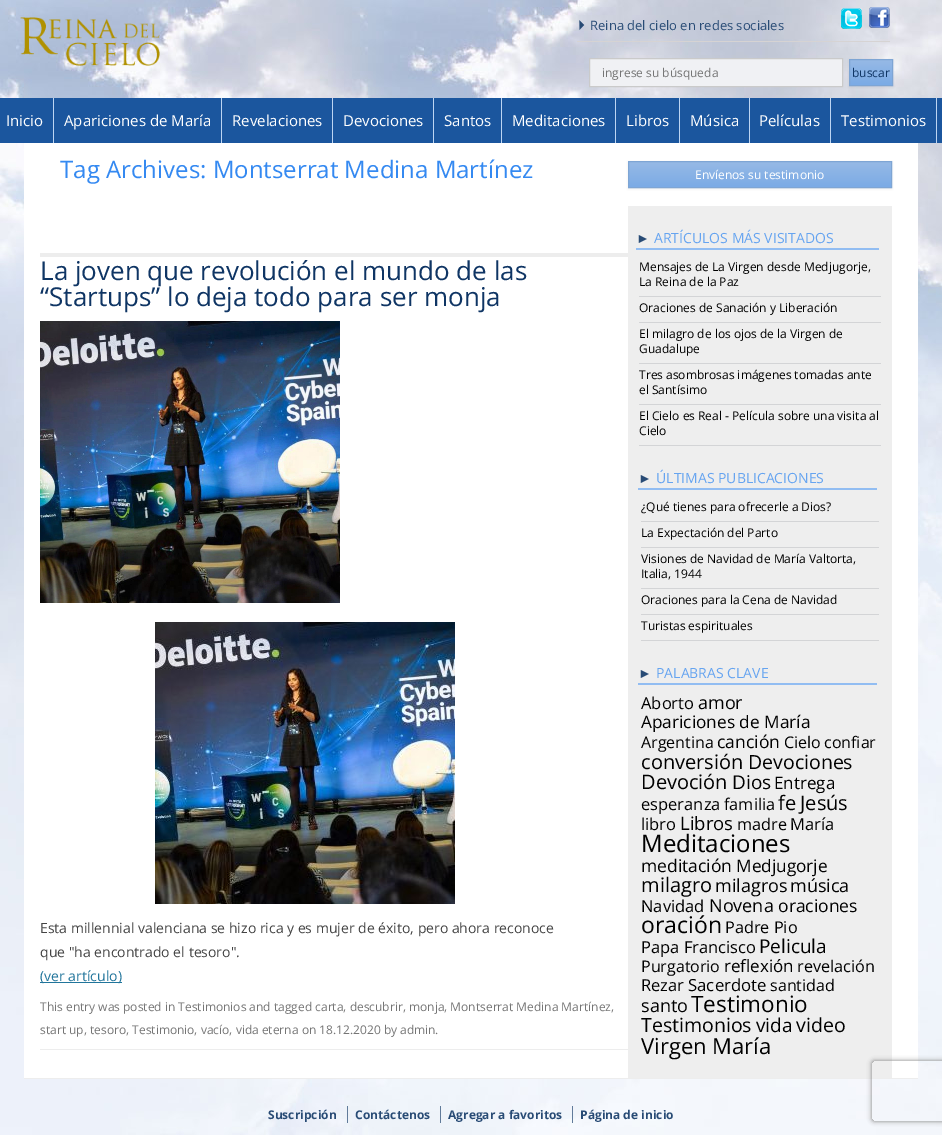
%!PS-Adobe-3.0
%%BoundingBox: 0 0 942 1135
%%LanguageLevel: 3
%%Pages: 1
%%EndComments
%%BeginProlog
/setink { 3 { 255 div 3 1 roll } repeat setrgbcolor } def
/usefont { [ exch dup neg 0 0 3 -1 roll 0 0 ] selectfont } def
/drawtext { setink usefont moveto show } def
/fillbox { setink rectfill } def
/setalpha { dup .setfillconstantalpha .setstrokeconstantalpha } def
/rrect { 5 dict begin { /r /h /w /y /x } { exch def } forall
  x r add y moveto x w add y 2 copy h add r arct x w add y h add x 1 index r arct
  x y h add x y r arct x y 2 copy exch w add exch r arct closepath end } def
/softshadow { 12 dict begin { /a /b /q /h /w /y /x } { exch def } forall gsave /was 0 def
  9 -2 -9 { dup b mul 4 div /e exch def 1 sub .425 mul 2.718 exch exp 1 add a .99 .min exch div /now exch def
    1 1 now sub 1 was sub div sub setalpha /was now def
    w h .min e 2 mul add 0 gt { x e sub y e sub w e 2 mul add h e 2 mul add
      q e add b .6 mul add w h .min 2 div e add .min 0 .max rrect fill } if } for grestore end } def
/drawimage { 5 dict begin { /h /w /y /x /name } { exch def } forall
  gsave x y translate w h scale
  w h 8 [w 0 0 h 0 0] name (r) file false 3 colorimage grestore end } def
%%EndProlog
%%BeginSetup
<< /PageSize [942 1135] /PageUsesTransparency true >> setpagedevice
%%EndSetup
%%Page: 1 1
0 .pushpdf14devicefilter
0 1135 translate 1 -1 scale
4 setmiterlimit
0 0 942 1135 255 255 255 fillbox
(assets/img1.rgb) 0 0 942 1135 drawimage
(assets/img2.rgb) 20 17 140 49 drawimage
(assets/img3.rgb) 579 20 6 10 drawimage
577 41 313 1 214 211 211 fillbox
(Reina del cielo en redes sociales) 590 30 /OpenSans-Regular 13 40 75 117 drawtext
(assets/img4.rgb) 841 8 21 21 drawimage
(assets/img5.rgb) 869 7 21 21 drawimage
240 241 244 setink
589.5 58.5 moveto 842.5 58.5 lineto 842.5 86.5 lineto 589.5 86.5 lineto closepath gsave fill grestore
202 202 202 setink
stroke
(ingrese su búsqueda) 602 77 /OpenSans-Regular 12 117 117 117 drawtext
64 64 64 setink
849 60 44 27 0 1 0.1 softshadow
gsave 850 60 moveto 892 60 lineto 892 85 lineto 850 85 lineto closepath clip newpath
<< /ShadingType 2 /ColorSpace /DeviceRGB /Coords [871 60 871 85] /Extend [true true] /Function << /FunctionType 2 /Domain [0 1] /C0 [0.588 0.725 0.898] /C1 [0.482 0.671 0.902] /N 1 >> >> shfill grestore
126 165 212 setink
849.5 59.5 43 26 rectstroke
(buscar) 852 77 /OpenSans-Regular 12 15 53 100 drawtext
0 98 942 45 27 86 158 fillbox
53 98 1 45 189 213 243 fillbox
(Inicio) 6 126 /OpenSans-Regular 15 255 255 255 drawtext
221 98 1 45 189 213 243 fillbox
(Apariciones de María) 64 126 /OpenSans-Regular 15 255 255 255 drawtext
332 98 1 45 189 213 243 fillbox
(Revelaciones) 232 126 /OpenSans-Regular 15 255 255 255 drawtext
433 98 1 45 189 213 243 fillbox
(Devociones) 343 126 /OpenSans-Regular 15 255 255 255 drawtext
501 98 1 45 189 213 243 fillbox
(Santos) 444 126 /OpenSans-Regular 15 255 255 255 drawtext
615 98 1 45 189 213 243 fillbox
(Meditaciones) 512 126 /OpenSans-Regular 15 255 255 255 drawtext
679 98 1 45 189 213 243 fillbox
(Libros) 626 126 /OpenSans-Regular 15 255 255 255 drawtext
749 98 1 45 189 213 243 fillbox
(Música) 690 126 /OpenSans-Regular 15 255 255 255 drawtext
830 98 1 45 189 213 243 fillbox
(Películas) 759 126 /OpenSans-Regular 15 255 255 255 drawtext
936 98 1 45 189 213 243 fillbox
(Testimonios) 841 126 /OpenSans-Regular 15 255 255 255 drawtext
24 143 894 935 255 255 255 fillbox
40 253 588 4 237 237 237 fillbox
(Tag Archives: Montserrat Medina Martínez) 60 178 /OpenSans-Regular 24 52 137 241 drawtext
40 1049 588 1 237 237 237 fillbox
(La joven que revolución el mundo de las) 40 280 /OpenSans-Regular 26 15 53 100 drawtext
(“Startups” lo deja todo para ser monja) 40 306 /OpenSans-Regular 26 15 53 100 drawtext
(assets/img6.rgb) 40 321 300 282 drawimage
(assets/img7.rgb) 155 622 300 282 drawimage
(Esta millennial valenciana se hizo rica y es mujer de éxito, pero ahora reconoce) 40 933 /OpenSans-Regular 14 68 68 68 drawtext
(que "ha encontrado el tesoro".) 40 957 /OpenSans-Regular 14 68 68 68 drawtext
40 982 82 1 33 117 155 fillbox
(\(ver artículo\)) 40 981 /OpenSans-Regular 14 33 117 155 drawtext
(This entry was posted in Testimonios and tagged carta, descubrir, monja, Montserrat Medina Martínez,) 40 1011 /OpenSans-Regular 12 117 117 117 drawtext
(start up, tesoro, Testimonio, vacío, vida eterna on 18.12.2020 by admin.) 40 1034 /OpenSans-Regular 12 117 117 117 drawtext
628 206 264 872 238 238 238 fillbox
64 64 64 setink
628 162 264 27 0 1 0.1 softshadow
gsave 629 162 moveto 891 162 lineto 891 187 lineto 629 187 lineto closepath clip newpath
<< /ShadingType 2 /ColorSpace /DeviceRGB /Coords [760 162 760 187] /Extend [true true] /Function << /FunctionType 2 /Domain [0 1] /C0 [0.588 0.725 0.898] /C1 [0.482 0.671 0.902] /N 1 >> >> shfill grestore
126 165 212 setink
628.5 161.5 263 26 rectstroke
(Envíenos su testimonio) 695 179 /OpenSans-Regular 12 255 255 255 drawtext
636 248 243 2 146 189 242 fillbox
(►) 636 243 /LiberationSans-Regular 14 40 75 117 drawtext
(ARTÍCULOS MÁS VISITADOS) 654 243 /OpenSans-Regular 14 102 164 240 drawtext
639 296 242 1 211 212 214 fillbox
(Mensajes de La Virgen desde Medjugorje,) 639 271 /OpenSans-Regular 12 0 0 0 drawtext
(La Reina de la Paz) 639 286 /OpenSans-Regular 12 0 0 0 drawtext
639 322 242 1 211 212 214 fillbox
(Oraciones de Sanación y Liberación) 639 312 /OpenSans-Regular 12 0 0 0 drawtext
639 363 242 1 211 212 214 fillbox
(El milagro de los ojos de la Virgen de) 639 338 /OpenSans-Regular 12 0 0 0 drawtext
(Guadalupe) 639 353 /OpenSans-Regular 12 0 0 0 drawtext
639 404 242 1 211 212 214 fillbox
(Tres asombrosas imágenes tomadas ante) 639 379 /OpenSans-Regular 12 0 0 0 drawtext
(el Santísimo) 639 394 /OpenSans-Regular 12 0 0 0 drawtext
639 445 242 1 211 212 214 fillbox
(El Cielo es Real - Película sobre una visita al) 639 420 /OpenSans-Regular 12 0 0 0 drawtext
(Cielo) 639 435 /OpenSans-Regular 12 0 0 0 drawtext
638 488 239 2 146 189 242 fillbox
(►) 638 483 /LiberationSans-Regular 14 40 75 117 drawtext
(ÚLTIMAS PUBLICACIONES) 656 483 /OpenSans-Regular 14 102 164 240 drawtext
641 521 238 1 211 212 214 fillbox
(¿Qué tienes para ofrecerle a Dios?) 641 511 /OpenSans-Regular 12 0 0 0 drawtext
641 547 238 1 211 212 214 fillbox
(La Expectación del Parto) 641 537 /OpenSans-Regular 12 0 0 0 drawtext
641 588 238 1 211 212 214 fillbox
(Visiones de Navidad de María Valtorta,) 641 563 /OpenSans-Regular 12 0 0 0 drawtext
(Italia, 1944) 641 578 /OpenSans-Regular 12 0 0 0 drawtext
641 614 238 1 211 212 214 fillbox
(Oraciones para la Cena de Navidad) 641 604 /OpenSans-Regular 12 0 0 0 drawtext
641 640 238 1 211 212 214 fillbox
(Turistas espirituales) 641 630 /OpenSans-Regular 12 0 0 0 drawtext
638 683 239 2 146 189 242 fillbox
(►) 638 678 /LiberationSans-Regular 14 40 75 117 drawtext
(PALABRAS CLAVE) 656 678 /OpenSans-Regular 14 102 164 240 drawtext
(Aborto) 641 709 /OpenSans-Regular 16.5 0 0 0 drawtext
(amor) 698 709 /OpenSans-Regular 18 0 0 0 drawtext
(Apariciones de María) 641 728 /OpenSans-Regular 17.25 0 0 0 drawtext
(Argentina) 641 748 /OpenSans-Regular 16 0 0 0 drawtext
(canción) 717 748 /OpenSans-Regular 17.5 0 0 0 drawtext
(Cielo) 784 748 /OpenSans-Regular 16 0 0 0 drawtext
(confiar) 824 748 /OpenSans-Regular 16 0 0 0 drawtext
(conversión) 641 769 /OpenSans-Regular 20 0 0 0 drawtext
(Devociones) 748 769 /OpenSans-Regular 19.5 0 0 0 drawtext
(Devoción) 641 789 /OpenSans-Regular 20 0 0 0 drawtext
(Dios) 732 789 /OpenSans-Regular 19 0 0 0 drawtext
(Entrega) 774 789 /OpenSans-Regular 17 0 0 0 drawtext
(esperanza) 641 810 /OpenSans-Regular 16.5 0 0 0 drawtext
(familia) 724 810 /OpenSans-Regular 16.25 0 0 0 drawtext
(fe) 778 810 /OpenSans-Regular 20 0 0 0 drawtext
(Jesús) 800 810 /OpenSans-Regular 20 0 0 0 drawtext
(libro) 641 830 /OpenSans-Regular 16.5 0 0 0 drawtext
(Libros) 680 830 /OpenSans-Regular 18.5 0 0 0 drawtext
(madre) 737 830 /OpenSans-Regular 16.25 0 0 0 drawtext
(María) 790 830 /OpenSans-Regular 16.5 0 0 0 drawtext
(Meditaciones) 641 852 /OpenSans-Regular 24 0 0 0 drawtext
(meditación) 641 872 /OpenSans-Regular 17.5 0 0 0 drawtext
(Medjugorje) 736 872 /OpenSans-Regular 17.25 0 0 0 drawtext
(milagro) 641 892 /OpenSans-Regular 20 0 0 0 drawtext
(milagros) 715 892 /OpenSans-Regular 18 0 0 0 drawtext
(música) 790 892 /OpenSans-Regular 18 0 0 0 drawtext
(Navidad) 641 912 /OpenSans-Regular 16.5 0 0 0 drawtext
(Novena) 709 912 /OpenSans-Regular 18 0 0 0 drawtext
(oraciones) 778 912 /OpenSans-Regular 17.5 0 0 0 drawtext
(oración) 641 933 /OpenSans-Regular 23 0 0 0 drawtext
(Padre Pio) 725 933 /OpenSans-Regular 16.25 0 0 0 drawtext
(Papa Francisco) 641 953 /OpenSans-Regular 16.5 0 0 0 drawtext
(Pelicula) 759 953 /OpenSans-Regular 19 0 0 0 drawtext
(Purgatorio) 641 972 /OpenSans-Regular 16 0 0 0 drawtext
(reflexión) 724 972 /OpenSans-Regular 17 0 0 0 drawtext
(revelación) 797 972 /OpenSans-Regular 16.25 0 0 0 drawtext
(Rezar) 641 991 /OpenSans-Regular 16.5 0 0 0 drawtext
(Sacerdote) 688 991 /OpenSans-Regular 16.75 0 0 0 drawtext
(santidad) 770 991 /OpenSans-Regular 16 0 0 0 drawtext
(santo) 641 1012 /OpenSans-Regular 18 0 0 0 drawtext
(Testimonio) 691 1012 /OpenSans-Regular 22.5 0 0 0 drawtext
(Testimonios) 641 1032 /OpenSans-Regular 19.5 0 0 0 drawtext
(vida) 756 1032 /OpenSans-Regular 19 0 0 0 drawtext
(video) 796 1032 /OpenSans-Regular 19.5 0 0 0 drawtext
(Virgen María) 641 1054 /OpenSans-Regular 22 0 0 0 drawtext
24 1078 894 1 237 237 237 fillbox
(Suscripción) 268 1119 /OpenSans-Bold 12 40 75 117 drawtext
(Contáctenos) 355 1119 /OpenSans-Bold 12 40 75 117 drawtext
347 1106 1 17 97 123 154 fillbox
(Agregar a favoritos) 448 1119 /OpenSans-Bold 12 40 75 117 drawtext
440 1106 1 17 97 123 154 fillbox
(Página de inicio) 580 1119 /OpenSans-Bold 12 40 75 117 drawtext
572 1106 1 17 97 123 154 fillbox
gsave
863 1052 moveto 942 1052 lineto 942 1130 lineto 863 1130 lineto closepath 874 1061 moveto 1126 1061 lineto 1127 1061 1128 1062 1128 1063 curveto 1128 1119 lineto 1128 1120 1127 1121 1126 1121 curveto 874 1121 lineto 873 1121 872 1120 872 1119 curveto 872 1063 lineto 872 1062 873 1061 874 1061 curveto closepath eoclip newpath
128 128 128 setink
872 1061 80 60 2 2.5 1 softshadow
grestore
.poppdf14devicefilter showpage
%%EOF
